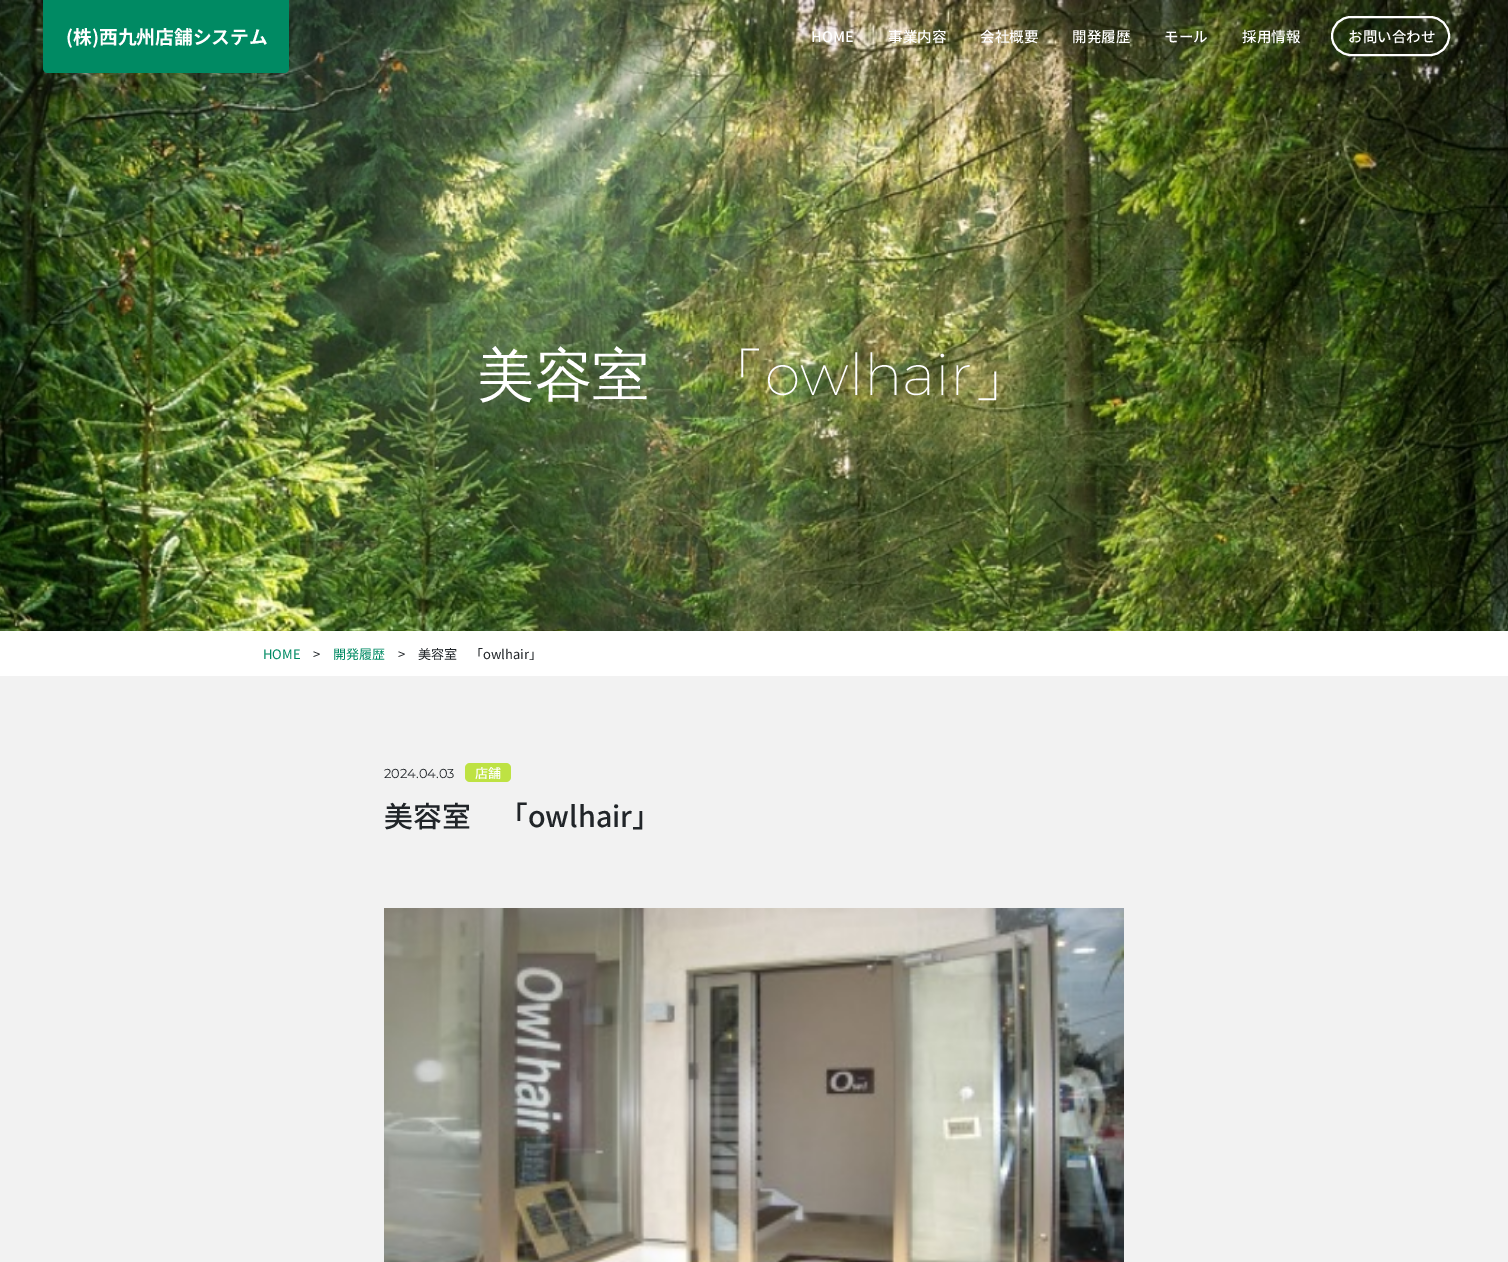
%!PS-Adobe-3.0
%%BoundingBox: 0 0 1508 1262
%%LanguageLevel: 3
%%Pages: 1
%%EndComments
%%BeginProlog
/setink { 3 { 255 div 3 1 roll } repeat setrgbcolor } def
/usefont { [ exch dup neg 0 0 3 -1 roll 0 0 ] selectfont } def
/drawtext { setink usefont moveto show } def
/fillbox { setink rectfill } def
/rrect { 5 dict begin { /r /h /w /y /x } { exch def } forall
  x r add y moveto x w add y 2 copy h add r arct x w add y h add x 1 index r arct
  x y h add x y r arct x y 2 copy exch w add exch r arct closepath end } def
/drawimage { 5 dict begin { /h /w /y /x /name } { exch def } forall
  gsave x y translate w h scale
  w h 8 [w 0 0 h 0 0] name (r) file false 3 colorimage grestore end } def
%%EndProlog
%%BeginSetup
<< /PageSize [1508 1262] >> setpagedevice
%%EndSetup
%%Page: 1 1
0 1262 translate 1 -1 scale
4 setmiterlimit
0 0 1508 1262 255 255 255 fillbox
(assets/img1.rgb) 0 0 1508 631 drawimage
0 138 99 setink
43 0 moveto 289 0 lineto 289 68 lineto 289 71 287 73 284 73 curveto 48 73 lineto 45 73 43 71 43 68 curveto closepath fill
(\(株\)西九州店舗システム) 66 44 /NotoSansJP-Bold 18.75 255 255 255 drawtext
(HOME) 811 42 /NotoSansJP-Medium 14.5 255 255 255 drawtext
(事業内容) 888 42 /NotoSansJP-Medium 14.5 255 255 255 drawtext
(会社概要) 980 42 /NotoSansJP-Medium 14.5 255 255 255 drawtext
(開発履歴) 1072 42 /NotoSansJP-Medium 14.5 255 255 255 drawtext
(モール) 1164 42 /NotoSansJP-Medium 14.5 255 255 255 drawtext
(採用情報) 1242 42 /NotoSansJP-Medium 14.5 255 255 255 drawtext
2 setlinewidth
1332 17 117 38 19 rrect stroke
(お問い合わせ) 1348 42 /NotoSansJP-Medium 14.5 255 255 255 drawtext
(美容室　「) 477 395 /WenQuanYiZenHei-Medium 57.5 255 255 255 drawtext
(owlhair) 765 395 /Montserrat-ExtraLight 57.5 255 255 255 drawtext
(」) 973 395 /WenQuanYiZenHei-Medium 57.5 255 255 255 drawtext
(HOME) 263 659 /NotoSansJP-Regular 13 0 138 99 drawtext
(>) 313 659 /NotoSansJP-Regular 13 33 37 41 drawtext
(開発履歴) 333 659 /NotoSansJP-Regular 13 0 138 99 drawtext
(>) 398 659 /NotoSansJP-Regular 13 33 37 41 drawtext
(美容室　「owlhair」) 418 659 /NotoSansJP-Regular 13 33 37 41 drawtext
0 676 1508 586 242 242 242 fillbox
(2024.04.03) 384 778 /Montserrat-Regular 13 33 37 41 drawtext
190 226 67 setink
465 763 46 19 5 rrect fill
(店舗) 475 778 /NotoSansJP-Medium 13 255 255 255 drawtext
(美容室　「owlhair」) 384 827 /NotoSansJP-Medium 28.75 33 37 41 drawtext
(assets/img2.rgb) 384 908 740 354 drawimage
showpage
%%EOF
